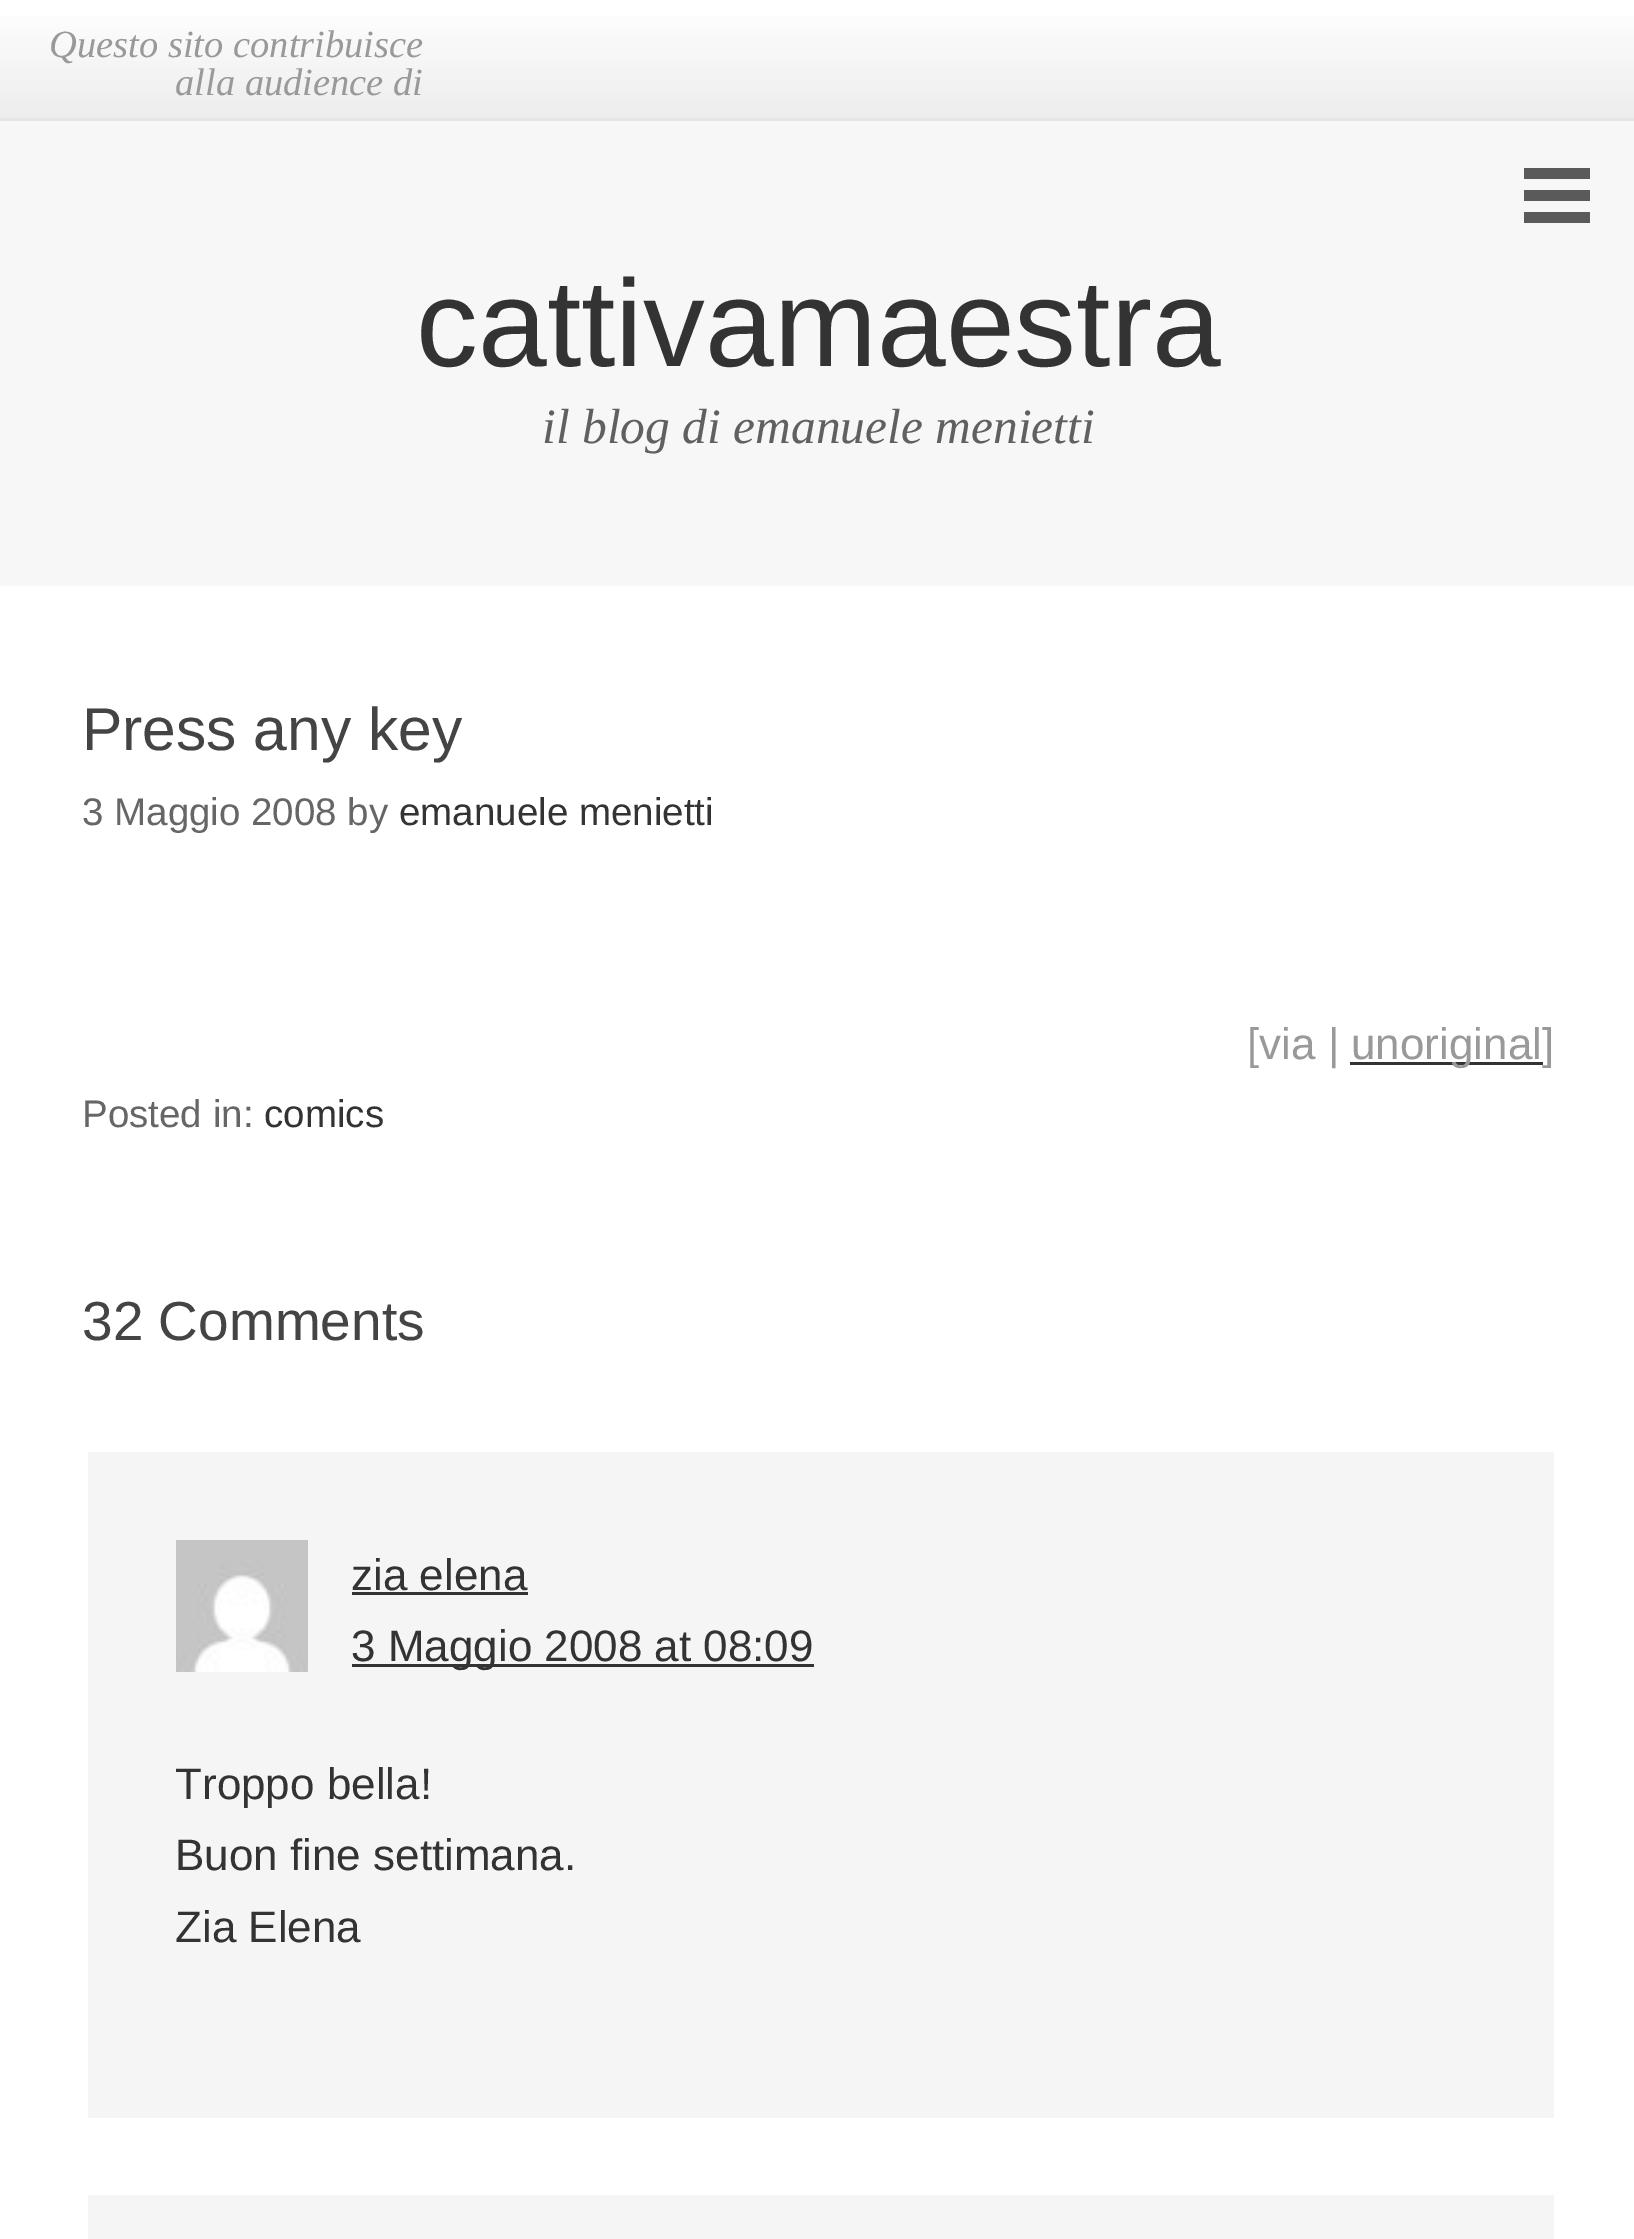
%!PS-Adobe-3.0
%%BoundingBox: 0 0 1634 2239
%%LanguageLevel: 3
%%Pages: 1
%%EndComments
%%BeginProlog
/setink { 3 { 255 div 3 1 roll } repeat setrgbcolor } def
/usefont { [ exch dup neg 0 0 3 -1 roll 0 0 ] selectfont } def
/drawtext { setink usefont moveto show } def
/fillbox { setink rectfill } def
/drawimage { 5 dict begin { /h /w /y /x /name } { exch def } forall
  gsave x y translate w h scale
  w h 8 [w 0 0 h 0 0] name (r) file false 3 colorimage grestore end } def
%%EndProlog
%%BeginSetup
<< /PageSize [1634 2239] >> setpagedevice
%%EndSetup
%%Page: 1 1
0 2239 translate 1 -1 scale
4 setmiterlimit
0 0 1634 2239 255 255 255 fillbox
gsave 0 16 moveto 1634 16 lineto 1634 118 lineto 0 118 lineto closepath clip newpath
<< /ShadingType 2 /ColorSpace /DeviceRGB /Coords [818 0 818 118] /Extend [true true] /Function << /FunctionType 2 /Domain [0 1] /C0 [1 1 1] /C1 [0.929 0.929 0.929] /N 1 >> >> shfill grestore
0 118 1634 3 228 228 228 fillbox
(Questo sito contribuisce) 49 57 /LiberationSerif-Italic 38.5 153 153 153 drawtext
(alla audience di) 175 95 /LiberationSerif-Italic 38.5 153 153 153 drawtext
0 121 1634 465 247 247 247 fillbox
1524 168 66 11 90 90 90 fillbox
1524 212 66 11 90 90 90 fillbox
1524 190 66 11 90 90 90 fillbox
(cattivamaestra) 416 366 /LiberationSans-Regular 123.75 51 51 51 drawtext
(il blog di emanuele menietti) 542 443 /LiberationSerif-Italic 49.5 96 96 96 drawtext
(Press any key) 82 750 /LiberationSans-Regular 60.5 68 68 68 drawtext
(3 Maggio 2008 by) 82 825 /LiberationSans-Regular 38.5 102 102 102 drawtext
(emanuele menietti) 399 825 /LiberationSans-Regular 38.5 51 51 51 drawtext
([via |) 1247 1059 /LiberationSans-Regular 44 153 153 153 drawtext
1350 1062 193 3 51 51 51 fillbox
(unoriginal]) 1351 1059 /LiberationSans-Regular 44 153 153 153 drawtext
(Posted in:) 82 1127 /LiberationSans-Regular 38.5 102 102 102 drawtext
(comics) 264 1127 /LiberationSans-Regular 38.5 51 51 51 drawtext
(32 Comments) 82 1340 /LiberationSans-Regular 55 68 68 68 drawtext
88 1452 1466 666 245 245 245 fillbox
(assets/img1.rgb) 176 1540 132 132 drawimage
(zia elena) 351 1590 /LiberationSans-Regular 44 51 51 51 drawtext
352 1592 176 3 51 51 51 fillbox
352 1664 462 3 51 51 51 fillbox
(3 Maggio 2008 at 08:09) 351 1661 /LiberationSans-Regular 44 51 51 51 drawtext
(Troppo bella!) 175 1799 /LiberationSans-Regular 44 51 51 51 drawtext
(Buon fine settimana.) 175 1870 /LiberationSans-Regular 44 51 51 51 drawtext
(Zia Elena) 175 1942 /LiberationSans-Regular 44 51 51 51 drawtext
88 2195 1466 44 245 245 245 fillbox
showpage
%%EOF
